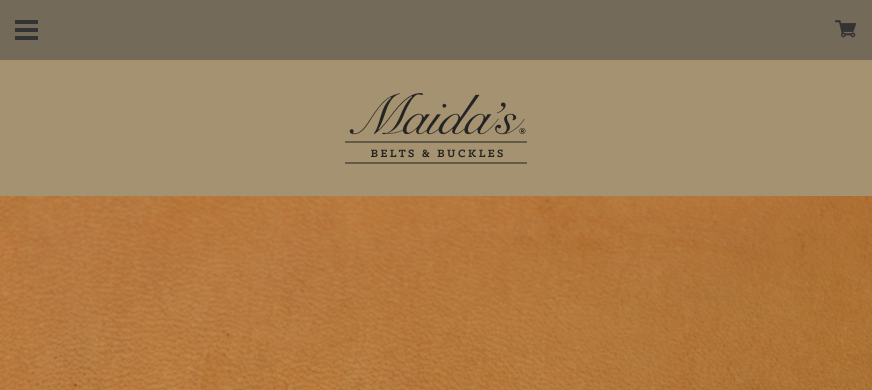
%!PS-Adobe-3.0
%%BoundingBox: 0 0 872 390
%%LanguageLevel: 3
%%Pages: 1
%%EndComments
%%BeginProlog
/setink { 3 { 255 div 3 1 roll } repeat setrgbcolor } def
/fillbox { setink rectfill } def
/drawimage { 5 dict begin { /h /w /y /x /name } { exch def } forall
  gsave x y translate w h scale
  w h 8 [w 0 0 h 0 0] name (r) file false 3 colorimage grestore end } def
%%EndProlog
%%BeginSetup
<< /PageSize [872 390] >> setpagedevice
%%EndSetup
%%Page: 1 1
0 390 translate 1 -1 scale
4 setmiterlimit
0 0 872 390 164 146 112 fillbox
0 0 872 60 115 106 90 fillbox
15 28 23 4 51 51 51 fillbox
15 20 23 4 51 51 51 fillbox
15 36 23 4 51 51 51 fillbox
(assets/img1.rgb) 835 20 22 18 drawimage
(assets/img2.rgb) 345 93 182 71 drawimage
(assets/img3.rgb) 0 196 872 194 drawimage
showpage
%%EOF
